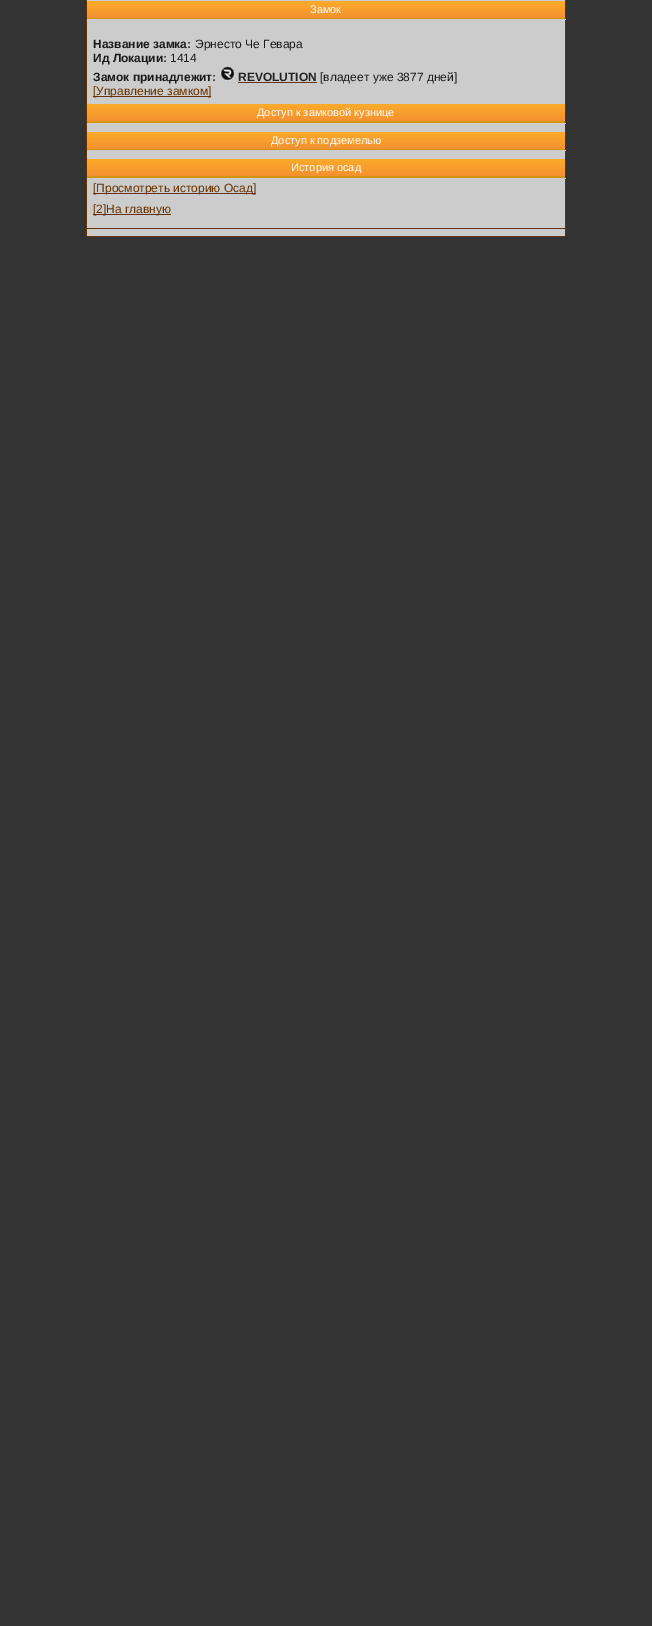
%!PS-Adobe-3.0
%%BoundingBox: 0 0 652 1626
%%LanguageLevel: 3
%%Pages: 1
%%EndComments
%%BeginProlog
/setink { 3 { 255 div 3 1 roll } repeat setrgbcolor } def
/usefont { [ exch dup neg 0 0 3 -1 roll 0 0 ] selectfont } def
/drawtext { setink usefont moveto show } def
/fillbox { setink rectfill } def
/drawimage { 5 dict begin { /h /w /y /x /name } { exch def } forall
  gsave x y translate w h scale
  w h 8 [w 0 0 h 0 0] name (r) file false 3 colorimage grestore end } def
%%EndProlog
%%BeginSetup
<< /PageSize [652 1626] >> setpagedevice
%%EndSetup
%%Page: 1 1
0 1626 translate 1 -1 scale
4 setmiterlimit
0 0 652 1626 51 51 51 fillbox
87 18 478 1 210 149 19 fillbox
(assets/img1.rgb) 87 1 478 17 drawimage
86 0 480 1 204 204 204 fillbox
565 0 1 103 102 51 0 fillbox
86 19 480 1 204 204 204 fillbox
86 0 1 103 102 51 0 fillbox
(Замок) 310 13 /LiberationSans-Regular 11 255 255 255 drawtext
87 20 478 83 204 204 204 fillbox
(Название замка:) 93 48 /LiberationSans-Bold 12 26 26 26 drawtext
(Эрнесто Че Гевара) 195 48 /LiberationSans-Regular 12 26 26 26 drawtext
(Ид Локации:) 93 62 /LiberationSans-Bold 12 26 26 26 drawtext
(1414) 170 62 /LiberationSans-Regular 12 26 26 26 drawtext
(Замок принадлежит:) 93 81 /LiberationSans-Bold 12 26 26 26 drawtext
(assets/img2.rgb) 220 66 15 15 drawimage
(REVOLUTION) 238 81 /LiberationSans-Bold 12 36 34 34 drawtext
238 82 79 1 102 51 0 fillbox
([владеет уже 3877 дней]) 320 81 /LiberationSans-Regular 12 26 26 26 drawtext
93 96 118 1 102 51 0 fillbox
([Управление замком]) 93 95 /LiberationSans-Regular 12 102 51 0 drawtext
87 121 478 2 210 149 19 fillbox
(assets/img1.rgb) 87 104 478 17 drawimage
86 103 480 1 204 204 204 fillbox
565 103 1 28 102 51 0 fillbox
86 123 480 1 204 204 204 fillbox
86 103 1 28 102 51 0 fillbox
(Доступ к замковой кузнице) 257 116 /LiberationSans-Regular 11 255 255 255 drawtext
87 124 478 7 204 204 204 fillbox
87 149 478 1 210 149 19 fillbox
(assets/img1.rgb) 87 132 478 17 drawimage
86 131 480 1 204 204 204 fillbox
565 131 1 27 102 51 0 fillbox
86 150 480 1 204 204 204 fillbox
86 131 1 27 102 51 0 fillbox
(Доступ к подземелью) 271 144 /LiberationSans-Regular 11 255 255 255 drawtext
87 151 478 7 204 204 204 fillbox
87 176 478 2 210 149 19 fillbox
(assets/img1.rgb) 87 159 478 17 drawimage
86 158 480 1 204 204 204 fillbox
565 158 1 79 102 51 0 fillbox
86 178 480 1 204 204 204 fillbox
86 158 1 63 102 51 0 fillbox
(История осад) 291 171 /LiberationSans-Regular 11 255 255 255 drawtext
87 179 478 49 204 204 204 fillbox
93 193 163 1 102 51 0 fillbox
([Просмотреть историю Осад]) 93 192 /LiberationSans-Regular 12 102 51 0 drawtext
93 214 78 1 102 51 0 fillbox
([2]На главную) 93 213 /LiberationSans-Regular 12 102 51 0 drawtext
86 228 480 1 102 51 0 fillbox
86 221 1 8 102 51 0 fillbox
87 229 478 7 204 204 204 fillbox
86 236 480 1 102 51 0 fillbox
86 229 1 8 102 51 0 fillbox
showpage
%%EOF
